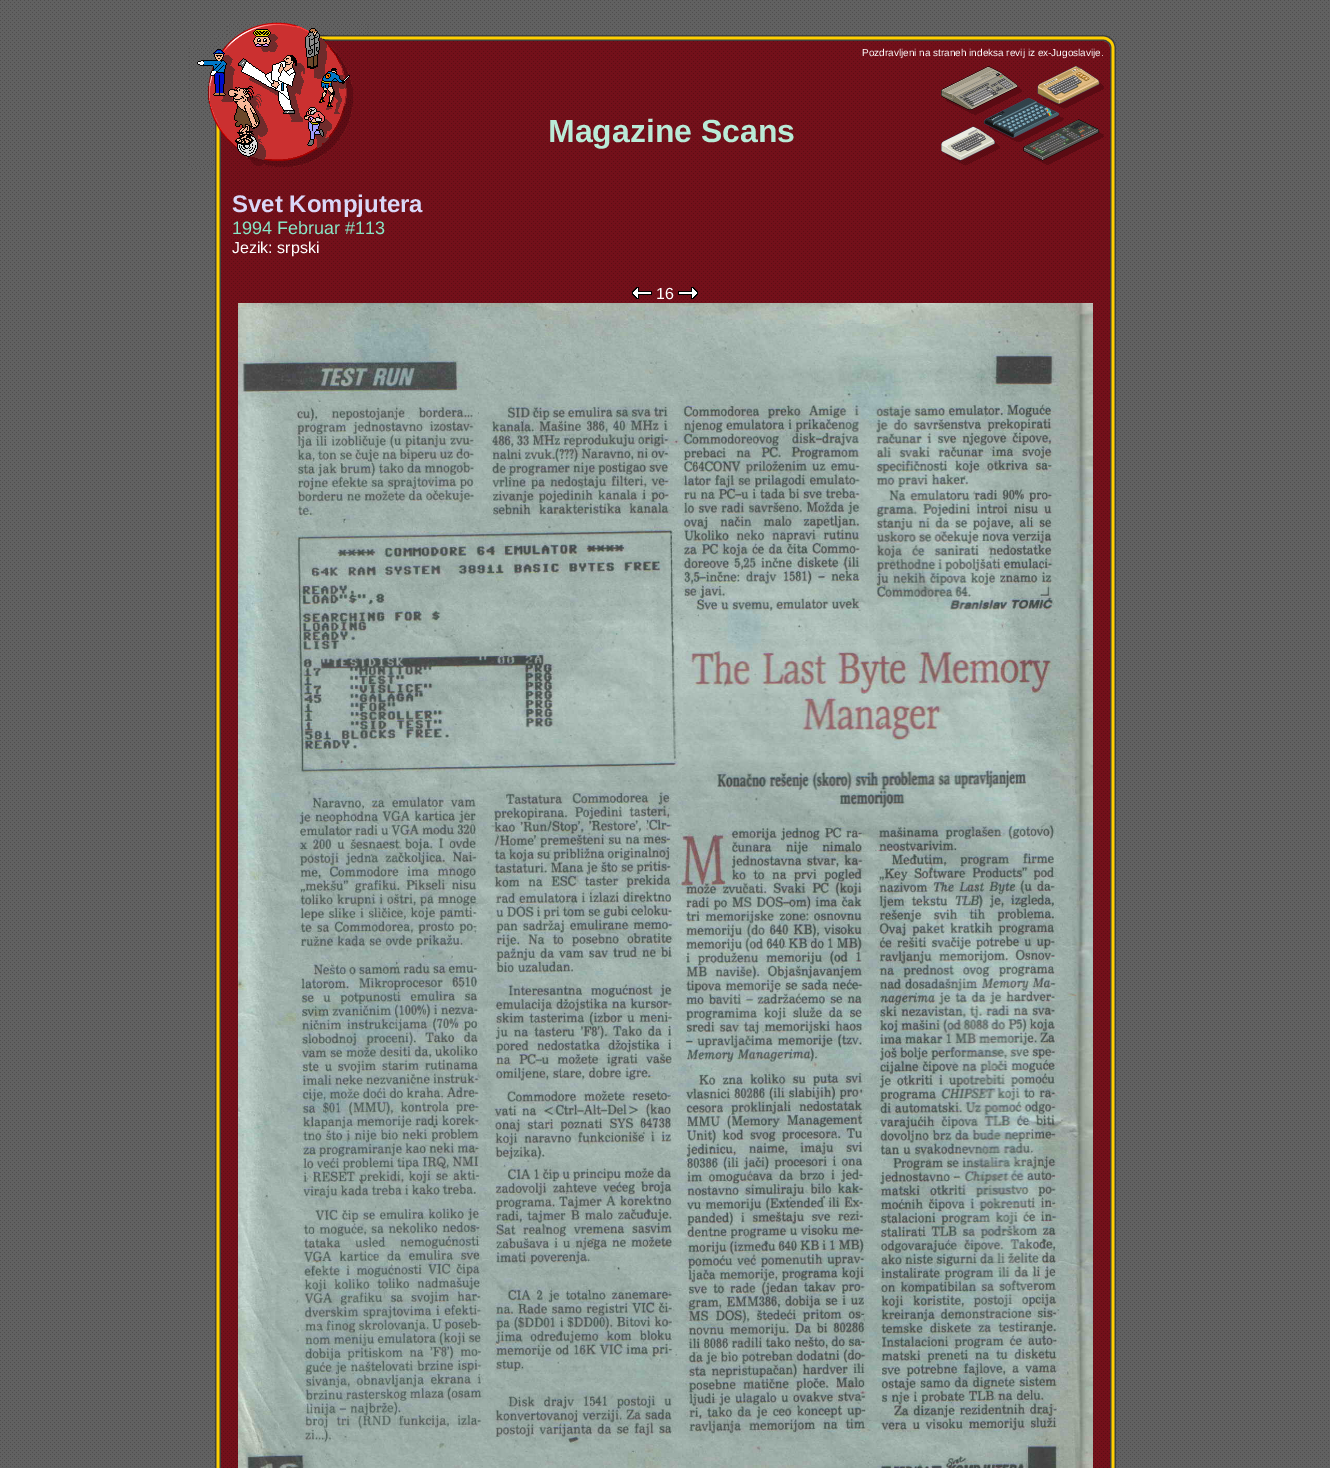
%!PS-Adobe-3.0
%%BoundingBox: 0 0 1330 1468
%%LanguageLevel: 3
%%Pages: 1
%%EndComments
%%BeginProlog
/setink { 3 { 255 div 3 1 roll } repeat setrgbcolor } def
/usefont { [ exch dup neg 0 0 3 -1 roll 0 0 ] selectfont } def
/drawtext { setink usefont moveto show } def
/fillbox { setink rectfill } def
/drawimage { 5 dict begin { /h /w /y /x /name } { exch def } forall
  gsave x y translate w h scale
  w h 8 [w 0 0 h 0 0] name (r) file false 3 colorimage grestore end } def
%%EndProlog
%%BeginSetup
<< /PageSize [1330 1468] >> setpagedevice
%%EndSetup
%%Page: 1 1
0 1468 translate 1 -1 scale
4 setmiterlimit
0 0 1330 1468 97 97 97 fillbox
(assets/img1.rgb) 0 0 1329 1467 drawimage
(assets/img2.rgb) 227 22 141 13 drawimage
(assets/img3.rgb) 189 48 26 119 drawimage
(assets/img4.rgb) 221 41 889 1427 drawimage
(assets/img5.rgb) 215 35 12 12 drawimage
(assets/img6.rgb) 331 35 773 6 drawimage
(assets/img7.rgb) 227 35 104 12 drawimage
(assets/img8.rgb) 1104 35 12 12 drawimage
(assets/img9.rgb) 215 139 6 1329 drawimage
(assets/img10.rgb) 215 47 12 92 drawimage
(assets/img11.rgb) 227 47 126 120 drawimage
(Pozdravljeni na straneh indeksa revij iz ex-Jugoslavije.) 862 56 /LiberationSans-Regular 10 255 255 255 drawtext
(Magazine Scans) 548 142 /LiberationSans-Bold 32 185 234 215 drawtext
(assets/img12.rgb) 941 66 163 99 drawimage
(Svet Kompjutera) 232 212 /LiberationSans-Bold 24 217 215 247 drawtext
(1994 Februar #113) 232 234 /LiberationSans-Regular 18 137 231 199 drawtext
(Jezik: srpski) 232 253 /LiberationSans-Regular 16 255 255 255 drawtext
(assets/img13.rgb) 632 287 20 12 drawimage
(16) 656 299 /LiberationSans-Regular 16 255 255 255 drawtext
(assets/img14.rgb) 678 287 20 12 drawimage
(assets/img15.rgb) 238 303 855 1165 drawimage
(assets/img16.rgb) 1110 47 6 1421 drawimage
showpage
%%EOF
